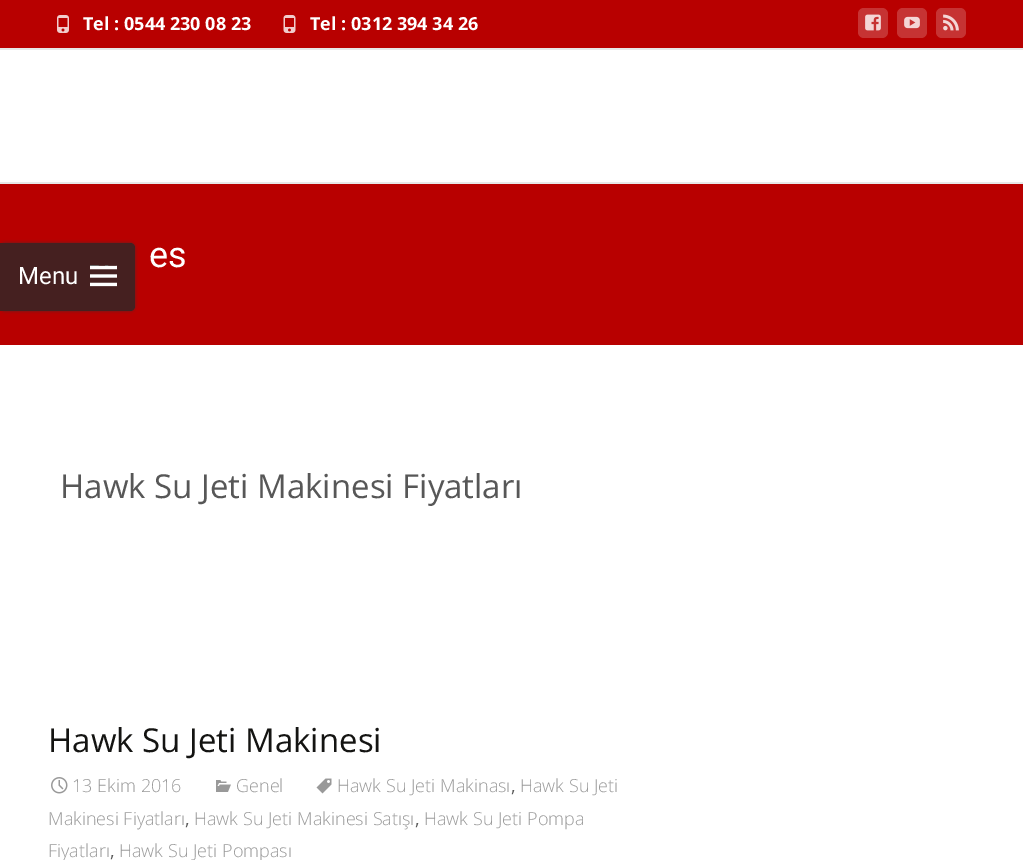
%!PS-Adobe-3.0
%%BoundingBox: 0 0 1023 860
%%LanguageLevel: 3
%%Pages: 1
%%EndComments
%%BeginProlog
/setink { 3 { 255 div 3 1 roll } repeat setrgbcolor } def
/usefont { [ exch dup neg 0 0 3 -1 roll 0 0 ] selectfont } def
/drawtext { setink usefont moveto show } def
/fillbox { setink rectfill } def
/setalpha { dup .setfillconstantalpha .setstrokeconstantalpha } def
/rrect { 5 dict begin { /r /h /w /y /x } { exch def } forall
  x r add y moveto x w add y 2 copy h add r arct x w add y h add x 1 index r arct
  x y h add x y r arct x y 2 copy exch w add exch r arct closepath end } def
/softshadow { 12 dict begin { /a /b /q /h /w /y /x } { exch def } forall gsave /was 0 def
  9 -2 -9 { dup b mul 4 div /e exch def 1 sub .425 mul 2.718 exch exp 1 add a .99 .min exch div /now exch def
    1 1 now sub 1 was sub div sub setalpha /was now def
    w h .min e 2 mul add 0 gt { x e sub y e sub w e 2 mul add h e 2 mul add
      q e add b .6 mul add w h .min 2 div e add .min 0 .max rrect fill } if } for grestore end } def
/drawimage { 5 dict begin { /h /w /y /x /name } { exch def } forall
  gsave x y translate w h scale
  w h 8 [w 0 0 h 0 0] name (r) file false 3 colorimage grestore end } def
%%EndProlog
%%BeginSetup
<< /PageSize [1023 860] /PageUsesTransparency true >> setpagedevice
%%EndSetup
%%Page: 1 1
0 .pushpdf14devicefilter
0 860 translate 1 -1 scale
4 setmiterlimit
0 0 1023 860 255 255 255 fillbox
0 0 1023 48 184 0 0 fillbox
0 48 1023 2 231 231 231 fillbox
(assets/img1.rgb) 57 15 12 18 drawimage
(Tel : 0544 230 08 23) 83 30 /OpenSans-Bold 18 255 255 255 drawtext
(assets/img2.rgb) 283 15 13 18 drawimage
(Tel : 0312 394 34 26) 310 30 /OpenSans-Bold 18 255 255 255 drawtext
198 51 51 setink
858 8 30 30 6 rrect fill
(assets/img3.rgb) 865 14 16 17 drawimage
897 8 30 30 6 rrect fill
(assets/img4.rgb) 904 16 16 13 drawimage
936 8 30 30 6 rrect fill
(assets/img5.rgb) 943 14 16 17 drawimage
0 184 1023 161 184 0 0 fillbox
(es) 149 267 /Roboto-Regular 36 255 255 255 drawtext
0 182 1023 2 231 231 231 fillbox
gsave
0 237 moveto 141 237 lineto 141 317 lineto 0 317 lineto closepath 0 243 moveto 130 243 lineto 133 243 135 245 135 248 curveto 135 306 lineto 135 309 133 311 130 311 curveto 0 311 lineto closepath eoclip newpath
50 50 50 setink
0 243 135 68 5 1.5 0.64 softshadow
grestore
0.8 setalpha
40 40 40 setink
0 243 moveto 130 243 lineto 133 243 135 245 135 248 curveto 135 306 lineto 135 309 133 311 130 311 curveto 0 311 lineto closepath fill
1 setalpha
(Menu) 18 284 /Roboto-Regular 24 255 255 255 drawtext
(assets/img6.rgb) 90 265 27 22 drawimage
(Hawk Su Jeti Makinesi Fiyatları) 60 498 /OpenSans-Regular 33 87 87 87 drawtext
(Hawk Su Jeti Makinesi) 48 752 /OpenSans-Regular 33 20 20 18 drawtext
(assets/img7.rgb) 316 778 16 16 drawimage
(Hawk Su Jeti Makinası) 337 792 /OpenSans-Light 18 153 153 153 drawtext
(,) 511 792 /OpenSans-Regular 18 87 87 87 drawtext
(Hawk Su Jeti) 520 792 /OpenSans-Light 18 153 153 153 drawtext
(Makinesi Fiyatları) 48 825 /OpenSans-Light 18 153 153 153 drawtext
(,) 185 825 /OpenSans-Regular 18 87 87 87 drawtext
(Hawk Su Jeti Makinesi Satışı) 194 825 /OpenSans-Light 18 153 153 153 drawtext
(,) 415 825 /OpenSans-Regular 18 87 87 87 drawtext
(Hawk Su Jeti Pompa) 424 825 /OpenSans-Light 18 153 153 153 drawtext
(Fiyatları) 48 857 /OpenSans-Light 18 153 153 153 drawtext
(,) 110 857 /OpenSans-Regular 18 87 87 87 drawtext
(Hawk Su Jeti Pompası) 119 857 /OpenSans-Light 18 153 153 153 drawtext
(assets/img8.rgb) 51 777 17 17 drawimage
(13 Ekim 2016) 72 792 /OpenSans-Light 18 153 153 153 drawtext
(assets/img9.rgb) 216 780 15 12 drawimage
(Genel) 236 792 /OpenSans-Light 18 153 153 153 drawtext
.poppdf14devicefilter showpage
%%EOF
